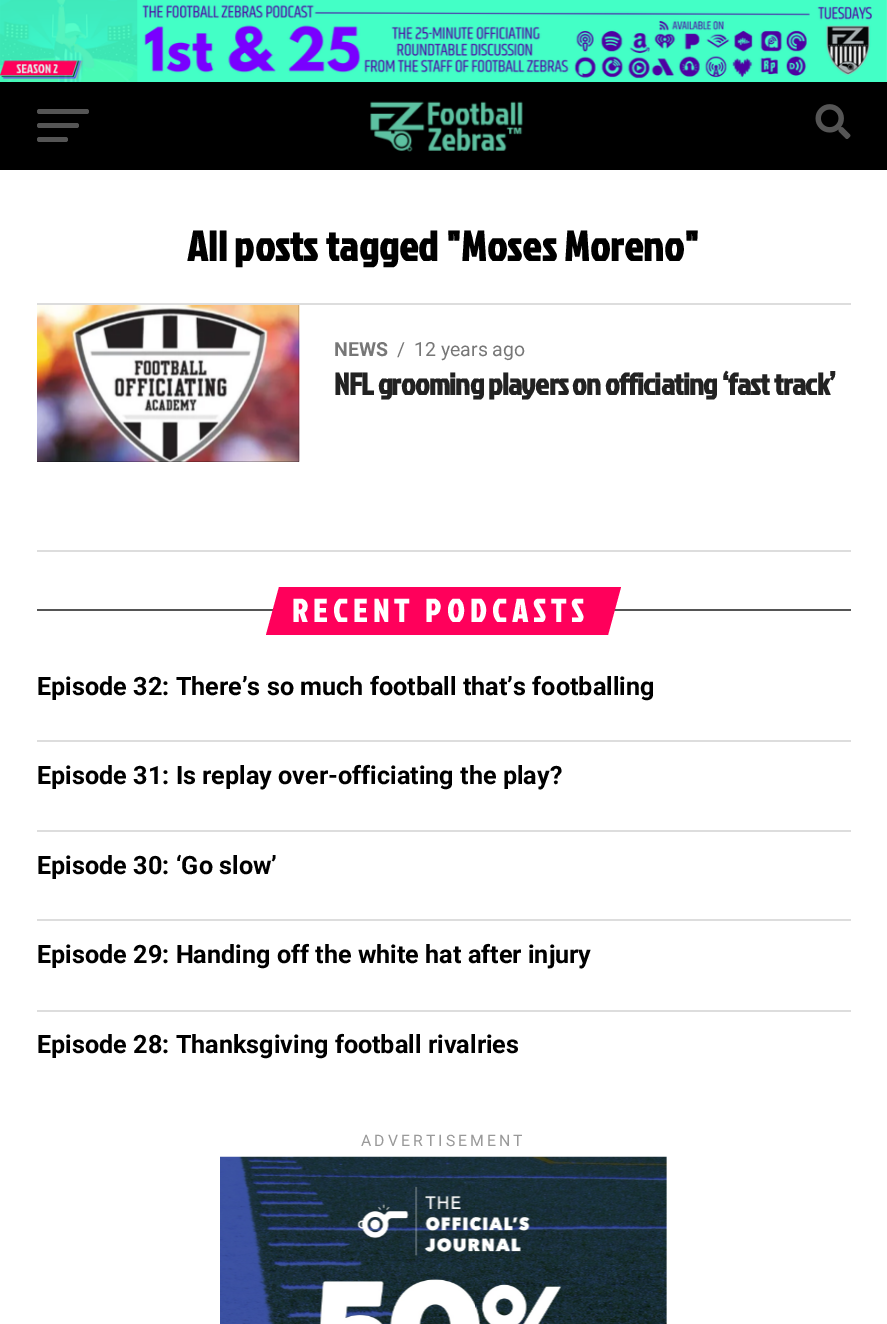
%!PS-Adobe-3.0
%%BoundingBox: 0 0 887 1324
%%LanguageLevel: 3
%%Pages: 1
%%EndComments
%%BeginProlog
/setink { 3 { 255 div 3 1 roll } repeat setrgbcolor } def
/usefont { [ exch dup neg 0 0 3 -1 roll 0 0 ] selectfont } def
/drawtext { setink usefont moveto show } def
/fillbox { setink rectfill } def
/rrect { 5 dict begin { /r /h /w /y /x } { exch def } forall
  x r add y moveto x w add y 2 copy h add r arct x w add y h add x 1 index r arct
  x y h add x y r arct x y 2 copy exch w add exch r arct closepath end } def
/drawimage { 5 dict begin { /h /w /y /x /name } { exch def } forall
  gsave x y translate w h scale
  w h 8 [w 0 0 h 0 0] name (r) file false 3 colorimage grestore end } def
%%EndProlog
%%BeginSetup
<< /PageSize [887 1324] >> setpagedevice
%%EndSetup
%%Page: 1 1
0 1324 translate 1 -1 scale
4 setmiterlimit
0 0 887 1324 255 255 255 fillbox
(assets/img1.rgb) 0 0 887 82 drawimage
0 82 887 88 0 0 0 fillbox
85 85 85 setink
37 109 52 5 2.5 rrect fill
37 123 42 5 2.5 rrect fill
37 137 31 5 2.5 rrect fill
(assets/img2.rgb) 370 101 153 51 drawimage
(assets/img3.rgb) 815 104 36 35 drawimage
/JockeyOne-Bold 42 usefont
0 0 0 setink
187 261 moveto 0.4 0 (All posts tagged "Moses Moreno") ashow
37 303 814 2 221 221 221 fillbox
37 305 262 157 0 0 0 fillbox
(assets/img4.rgb) 37 305 263 157 drawimage
(NEWS) 334 356 /Roboto-Bold 19.5 119 119 119 drawtext
(/) 397 356 /Roboto-Regular 19.5 119 119 119 drawtext
(12 years ago) 414 356 /Roboto-Regular 19.5 119 119 119 drawtext
/JockeyOne-Bold 30.75 usefont
34 34 34 setink
334 395 moveto -0.6 0 (NFL grooming players on officiating ‘fast track’) ashow
37 550 814 2 221 221 221 fillbox
37 609 814 2 85 85 85 fillbox
255 0 91 setink
279 587 moveto 621 587 lineto 608 635 lineto 266 635 lineto closepath fill
/JockeyOne-Bold 31.9 usefont
255 255 255 setink
292 622 moveto 5.7 0 (RECENT PODCASTS) ashow
(Episode 32: There’s so much football that’s footballing) 37 695 /Roboto-Bold 25.2 0 0 0 drawtext
37 740 814 2 221 221 221 fillbox
(Episode 31: Is replay over-officiating the play?) 37 784 /Roboto-Bold 25.2 0 0 0 drawtext
37 830 814 2 221 221 221 fillbox
(Episode 30: ‘Go slow’) 37 874 /Roboto-Bold 25.2 0 0 0 drawtext
37 919 814 2 221 221 221 fillbox
(Episode 29: Handing off the white hat after injury) 37 963 /Roboto-Bold 25.2 0 0 0 drawtext
37 1010 814 2 221 221 221 fillbox
(Episode 28: Thanksgiving football rivalries) 37 1053 /Roboto-Bold 25.2 0 0 0 drawtext
/Roboto-Regular 15.75 usefont
153 153 153 setink
361 1146 moveto 3.1 0 (ADVERTISEMENT) ashow
(assets/img5.rgb) 220 1156 447 168 drawimage
showpage
%%EOF
